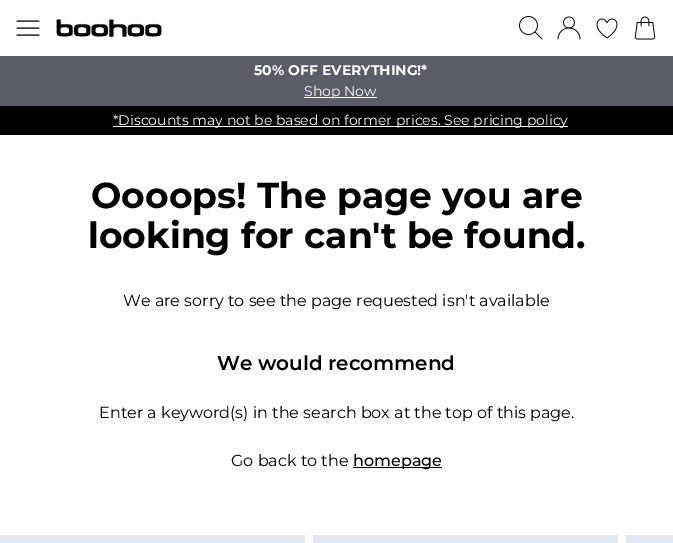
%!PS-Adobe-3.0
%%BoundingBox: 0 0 673 543
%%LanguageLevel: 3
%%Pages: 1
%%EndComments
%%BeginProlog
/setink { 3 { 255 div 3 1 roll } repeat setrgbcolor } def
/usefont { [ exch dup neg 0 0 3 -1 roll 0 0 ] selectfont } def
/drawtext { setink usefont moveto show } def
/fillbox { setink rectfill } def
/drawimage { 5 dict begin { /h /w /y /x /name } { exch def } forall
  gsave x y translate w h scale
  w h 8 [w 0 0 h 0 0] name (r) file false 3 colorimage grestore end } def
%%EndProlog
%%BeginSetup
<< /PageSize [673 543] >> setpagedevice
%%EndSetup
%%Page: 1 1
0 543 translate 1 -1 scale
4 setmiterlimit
0 0 673 543 255 255 255 fillbox
0 0 0 setink
1 setlinecap
39 28 moveto 17 28 lineto 39 35 moveto 17 35 lineto 39 21 moveto 17 21 lineto stroke
(assets/img1.rgb) 56 19 106 18 drawimage
(assets/img2.rgb) 519 16 24 24 drawimage
(assets/img3.rgb) 557 16 24 24 drawimage
(assets/img4.rgb) 596 18 22 21 drawimage
(assets/img5.rgb) 634 16 22 24 drawimage
0 56 673 50 91 92 104 fillbox
(50% OFF EVERYTHING!*) 254 75 /Montserrat-Thin 14 255 255 255 drawtext
304 97 73 1 255 255 255 fillbox
(Shop Now) 304 96 /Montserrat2-Thin 14 255 255 255 drawtext
0 106 673 29 0 0 0 fillbox
113 126 455 1 255 255 255 fillbox
(*Discounts may not be based on former prices. See pricing policy) 113 125 /Montserrat2-Thin 14 255 255 255 drawtext
(Oooops! The page you are) 91 208 /Montserrat-Thin 36 0 0 0 drawtext
(looking for can't be found.) 88 248 /Montserrat-Thin 36 0 0 0 drawtext
(We are sorry to see the page requested isn't available) 123 306 /Montserrat2-Thin 16 0 0 0 drawtext
(We would recommend) 217 370 /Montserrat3-Thin 20 0 0 0 drawtext
(Enter a keyword\(s\) in the search box at the top of this page.) 99 418 /Montserrat2-Thin 16 0 0 0 drawtext
(Go back to the) 231 466 /Montserrat2-Thin 16 0 0 0 drawtext
353 467 89 1 0 0 0 fillbox
(homepage) 353 466 /Montserrat-Medium 16 0 0 0 drawtext
0 535 305 8 226 232 240 fillbox
313 535 305 8 226 232 240 fillbox
626 535 47 8 226 232 240 fillbox
showpage
%%EOF
